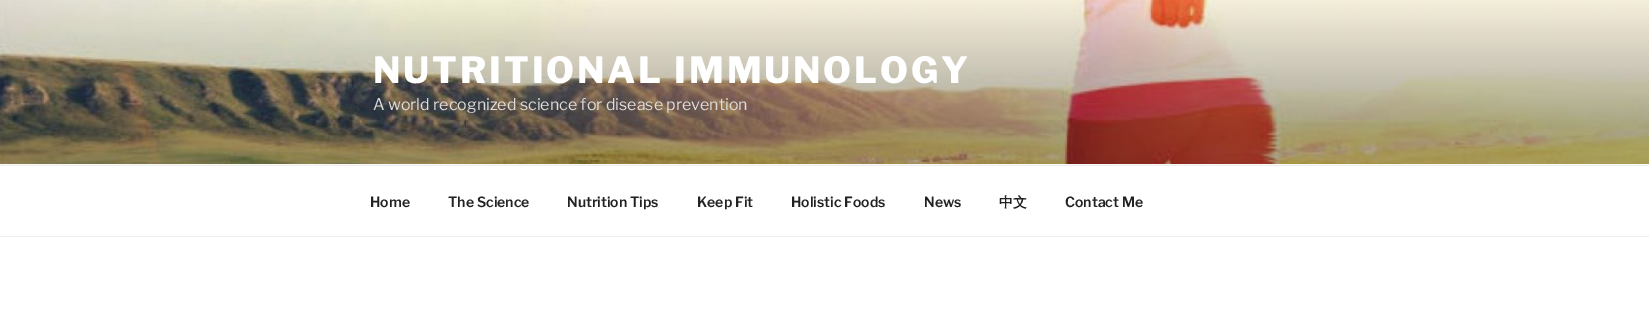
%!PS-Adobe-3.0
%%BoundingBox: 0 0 1649 329
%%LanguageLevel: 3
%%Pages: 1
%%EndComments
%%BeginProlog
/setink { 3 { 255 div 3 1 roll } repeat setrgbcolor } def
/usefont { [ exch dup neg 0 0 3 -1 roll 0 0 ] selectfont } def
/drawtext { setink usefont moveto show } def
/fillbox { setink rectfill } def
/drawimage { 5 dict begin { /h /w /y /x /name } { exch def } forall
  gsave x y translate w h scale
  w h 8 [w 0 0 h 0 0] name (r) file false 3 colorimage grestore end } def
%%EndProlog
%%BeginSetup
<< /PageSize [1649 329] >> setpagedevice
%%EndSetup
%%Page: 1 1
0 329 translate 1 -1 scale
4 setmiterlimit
0 0 1649 329 255 255 255 fillbox
0 164 1649 1 250 250 250 fillbox
(assets/img1.rgb) 0 0 1649 164 drawimage
/LibreFranklin-Thin 36 usefont
255 255 255 setink
373 83 moveto 2.9 0 (NUTRITIONAL IMMUNOLOGY) ashow
(A world recognized science for disease prevention) 373 110 /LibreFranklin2-Thin 16 223 221 219 drawtext
0 165 1649 1 238 238 238 fillbox
0 236 1649 1 238 238 238 fillbox
(Home) 370 207 /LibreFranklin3-Thin 14 34 34 34 drawtext
(The Science) 448 207 /LibreFranklin3-Thin 14 34 34 34 drawtext
(Nutrition Tips) 567 207 /LibreFranklin3-Thin 14 34 34 34 drawtext
(Keep Fit) 697 207 /LibreFranklin3-Thin 14 34 34 34 drawtext
(Holistic Foods) 791 207 /LibreFranklin3-Thin 14 34 34 34 drawtext
(News) 924 207 /LibreFranklin3-Thin 14 34 34 34 drawtext
(中文) 999 207 /WenQuanYiZenHei-Bold 14 34 34 34 drawtext
(Contact Me) 1065 207 /LibreFranklin3-Thin 14 34 34 34 drawtext
showpage
%%EOF
